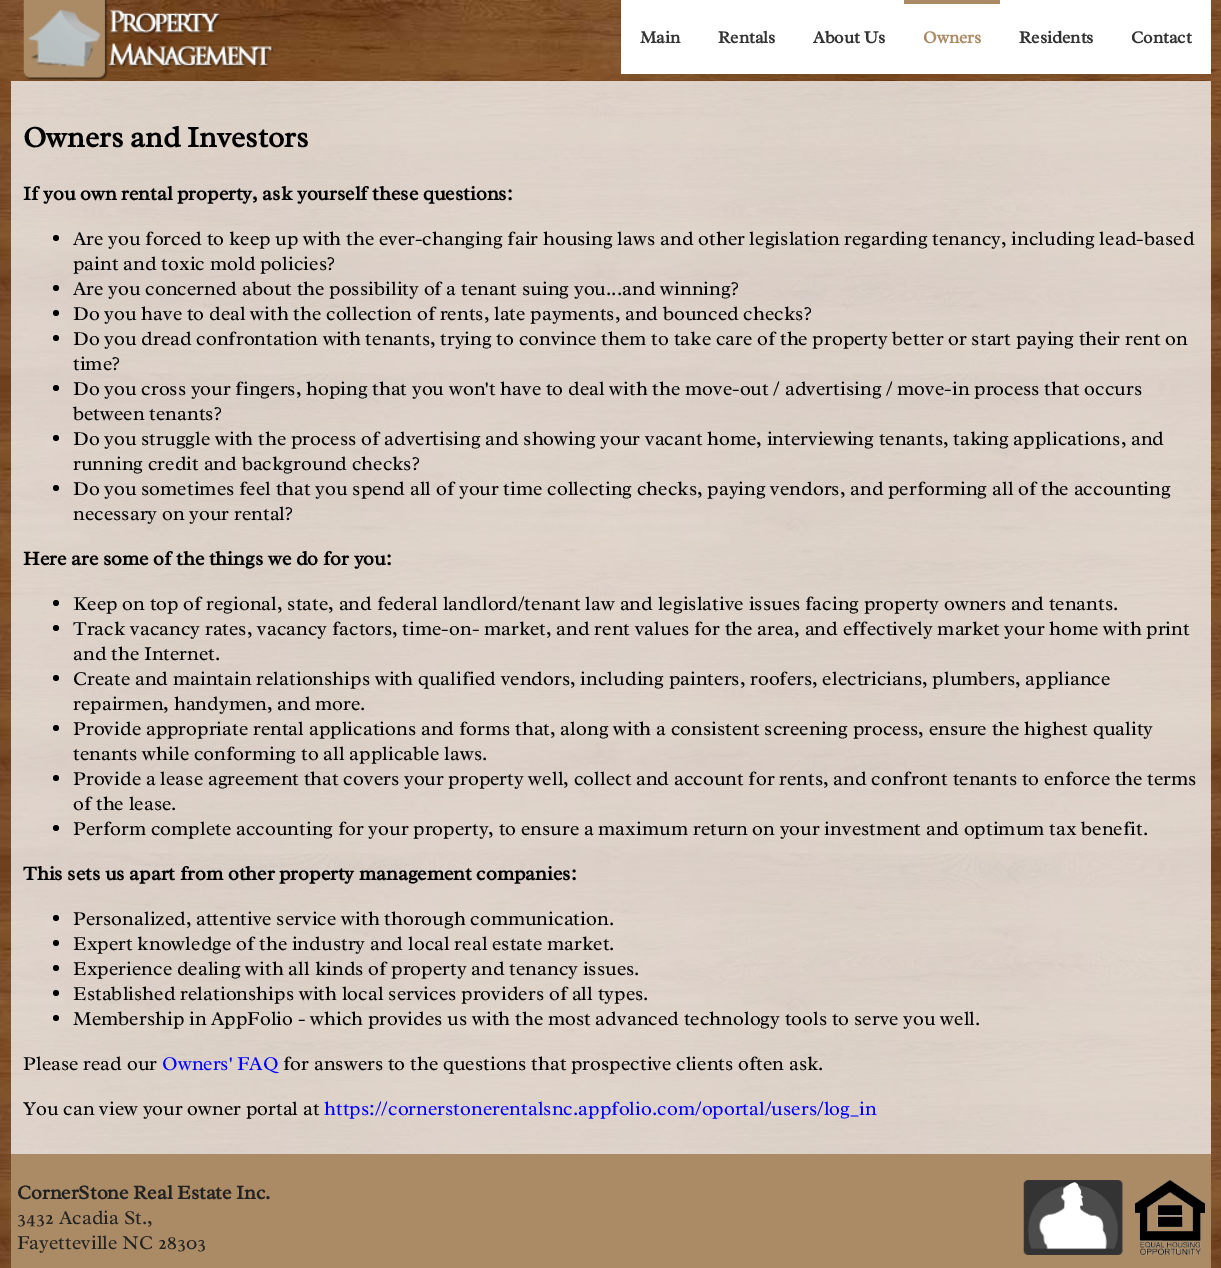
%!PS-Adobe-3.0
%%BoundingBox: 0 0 1221 1268
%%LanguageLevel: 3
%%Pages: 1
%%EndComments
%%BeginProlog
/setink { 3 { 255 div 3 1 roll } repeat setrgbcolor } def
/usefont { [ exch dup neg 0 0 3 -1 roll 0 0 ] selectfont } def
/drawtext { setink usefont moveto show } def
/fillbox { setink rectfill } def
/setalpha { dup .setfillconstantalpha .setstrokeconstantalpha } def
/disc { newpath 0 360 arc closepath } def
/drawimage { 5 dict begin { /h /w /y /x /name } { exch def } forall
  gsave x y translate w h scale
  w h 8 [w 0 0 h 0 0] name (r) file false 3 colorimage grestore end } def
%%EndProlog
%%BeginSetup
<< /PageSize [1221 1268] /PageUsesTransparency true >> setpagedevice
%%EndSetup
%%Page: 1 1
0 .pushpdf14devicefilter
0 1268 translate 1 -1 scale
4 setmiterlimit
0 0 1221 1268 255 255 255 fillbox
(assets/img1.rgb) 0 0 1221 1268 drawimage
(assets/img2.rgb) 23 0 251 80 drawimage
621 0 283 74 255 255 255 fillbox
(Main) 640 43 /Radley-Bold 17.5 51 51 51 drawtext
(Rentals) 718 43 /Radley-Bold 17.5 51 51 51 drawtext
(About Us) 813 43 /Radley-Bold 17.5 51 51 51 drawtext
904 4 96 70 255 255 255 fillbox
904 0 96 4 171 139 101 fillbox
(Owners) 923 43 /Radley-Bold 17.5 171 139 101 drawtext
1000 0 211 74 255 255 255 fillbox
(Residents) 1019 43 /Radley-Bold 17.5 51 51 51 drawtext
(Contact) 1131 43 /Radley-Bold 17.5 51 51 51 drawtext
0.75 setalpha
11 81 1200 1073 255 255 255 fillbox
1 setalpha
(Owners and Investors) 23 147 /Radley-Bold 30 0 0 0 drawtext
(If you own rental property, ask yourself these questions:) 23 200 /Radley-Bold 20 0 0 0 drawtext
56 238 3 disc fill
(Are you forced to keep up with the ever-changing fair housing laws and other legislation regarding tenancy, including lead-based) 73 245 /Radley-Regular 20 0 0 0 drawtext
(paint and toxic mold policies?) 73 270 /Radley-Regular 20 0 0 0 drawtext
56 288 3 disc fill
(Are you concerned about the possibility of a tenant suing you...and winning?) 73 295 /Radley-Regular 20 0 0 0 drawtext
56 313 3 disc fill
(Do you have to deal with the collection of rents, late payments, and bounced checks?) 73 320 /Radley-Regular 20 0 0 0 drawtext
56 338 3 disc fill
(Do you dread confrontation with tenants, trying to convince them to take care of the property better or start paying their rent on) 73 345 /Radley-Regular 20 0 0 0 drawtext
(time?) 73 370 /Radley-Regular 20 0 0 0 drawtext
56 388 3 disc fill
(Do you cross your fingers, hoping that you won't have to deal with the move-out / advertising / move-in process that occurs) 73 395 /Radley-Regular 20 0 0 0 drawtext
(between tenants?) 73 420 /Radley-Regular 20 0 0 0 drawtext
56 438 3 disc fill
(Do you struggle with the process of advertising and showing your vacant home, interviewing tenants, taking applications, and) 73 445 /Radley-Regular 20 0 0 0 drawtext
(running credit and background checks?) 73 470 /Radley-Regular 20 0 0 0 drawtext
56 488 3 disc fill
(Do you sometimes feel that you spend all of your time collecting checks, paying vendors, and performing all of the accounting) 73 495 /Radley-Regular 20 0 0 0 drawtext
(necessary on your rental?) 73 520 /Radley-Regular 20 0 0 0 drawtext
(Here are some of the things we do for you:) 23 565 /Radley-Bold 20 0 0 0 drawtext
56 603 3 disc fill
(Keep on top of regional, state, and federal landlord/tenant law and legislative issues facing property owners and tenants.) 73 610 /Radley-Regular 20 0 0 0 drawtext
56 628 3 disc fill
(Track vacancy rates, vacancy factors, time-on- market, and rent values for the area, and effectively market your home with print) 73 635 /Radley-Regular 20 0 0 0 drawtext
(and the Internet.) 73 660 /Radley-Regular 20 0 0 0 drawtext
56 678 3 disc fill
(Create and maintain relationships with qualified vendors, including painters, roofers, electricians, plumbers, appliance) 73 685 /Radley-Regular 20 0 0 0 drawtext
(repairmen, handymen, and more.) 73 710 /Radley-Regular 20 0 0 0 drawtext
56 728 3 disc fill
(Provide appropriate rental applications and forms that, along with a consistent screening process, ensure the highest quality) 73 735 /Radley-Regular 20 0 0 0 drawtext
(tenants while conforming to all applicable laws.) 73 760 /Radley-Regular 20 0 0 0 drawtext
56 778 3 disc fill
(Provide a lease agreement that covers your property well, collect and account for rents, and confront tenants to enforce the terms) 73 785 /Radley-Regular 20 0 0 0 drawtext
(of the lease.) 73 810 /Radley-Regular 20 0 0 0 drawtext
56 828 3 disc fill
(Perform complete accounting for your property, to ensure a maximum return on your investment and optimum tax benefit.) 73 835 /Radley-Regular 20 0 0 0 drawtext
(This sets us apart from other property management companies:) 23 880 /Radley-Bold 20 0 0 0 drawtext
56 918 3 disc fill
(Personalized, attentive service with thorough communication.) 73 925 /Radley-Regular 20 0 0 0 drawtext
56 943 3 disc fill
(Expert knowledge of the industry and local real estate market.) 73 950 /Radley-Regular 20 0 0 0 drawtext
56 968 3 disc fill
(Experience dealing with all kinds of property and tenancy issues.) 73 975 /Radley-Regular 20 0 0 0 drawtext
56 993 3 disc fill
(Established relationships with local services providers of all types.) 73 1000 /Radley-Regular 20 0 0 0 drawtext
56 1018 3 disc fill
(Membership in AppFolio - which provides us with the most advanced technology tools to serve you well.) 73 1025 /Radley-Regular 20 0 0 0 drawtext
(Please read our) 23 1070 /Radley-Regular 20 0 0 0 drawtext
(Owners' FAQ) 162 1070 /Radley-Regular 20 0 0 255 drawtext
(for answers to the questions that prospective clients often ask.) 283 1070 /Radley-Regular 20 0 0 0 drawtext
(You can view your owner portal at) 23 1115 /Radley-Regular 20 0 0 0 drawtext
(https://cornerstonerentalsnc.appfolio.com/oportal/users/log_in) 324 1115 /Radley-Regular 20 0 0 255 drawtext
11 1154 1200 114 171 139 101 fillbox
(CornerStone Real Estate Inc.) 17 1199 /Radley-Bold 20 34 34 34 drawtext
(assets/img3.rgb) 1023 1180 100 75 drawimage
(assets/img4.rgb) 1135 1180 70 75 drawimage
(3432 Acadia St.,) 17 1224 /Radley-Regular 20 34 34 34 drawtext
(Fayetteville NC 28303) 17 1249 /Radley-Regular 20 34 34 34 drawtext
.poppdf14devicefilter showpage
%%EOF
